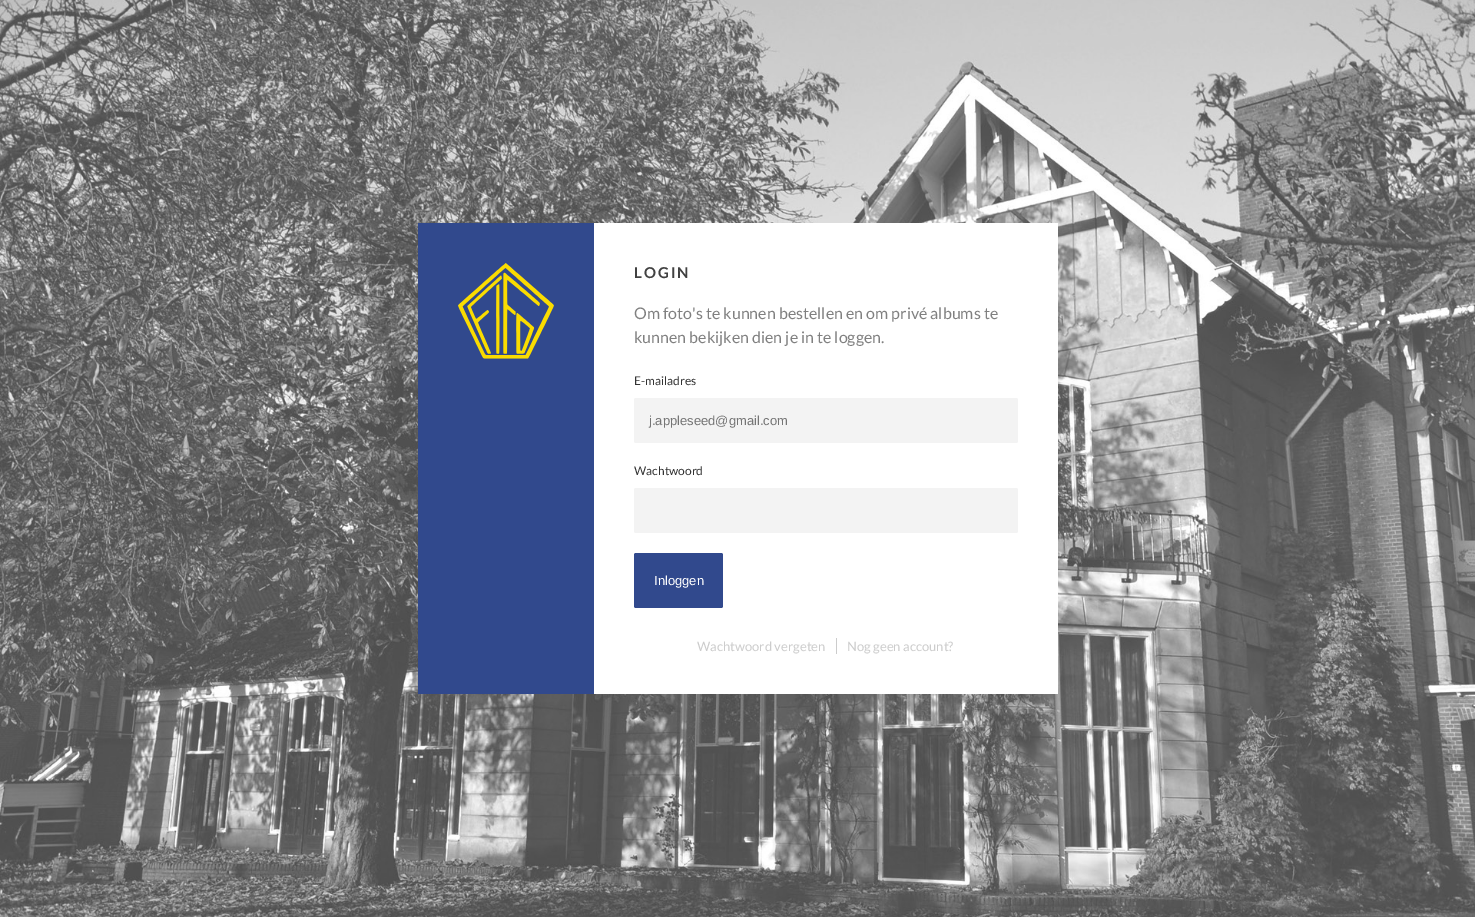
%!PS-Adobe-3.0
%%BoundingBox: 0 0 1475 917
%%LanguageLevel: 3
%%Pages: 1
%%EndComments
%%BeginProlog
/setink { 3 { 255 div 3 1 roll } repeat setrgbcolor } def
/usefont { [ exch dup neg 0 0 3 -1 roll 0 0 ] selectfont } def
/drawtext { setink usefont moveto show } def
/fillbox { setink rectfill } def
/rrect { 5 dict begin { /r /h /w /y /x } { exch def } forall
  x r add y moveto x w add y 2 copy h add r arct x w add y h add x 1 index r arct
  x y h add x y r arct x y 2 copy exch w add exch r arct closepath end } def
/drawimage { 5 dict begin { /h /w /y /x /name } { exch def } forall
  gsave x y translate w h scale
  w h 8 [w 0 0 h 0 0] name (r) file false 3 colorimage grestore end } def
%%EndProlog
%%BeginSetup
<< /PageSize [1475 917] >> setpagedevice
%%EndSetup
%%Page: 1 1
0 917 translate 1 -1 scale
4 setmiterlimit
0 0 1475 917 255 255 255 fillbox
(assets/img1.rgb) 0 0 1475 917 drawimage
418 223 176 471 49 73 141 fillbox
(assets/img2.rgb) 458 263 96 96 drawimage
594 223 464 471 255 255 255 fillbox
/Lato-Bold 15 usefont
65 65 65 setink
634 278 moveto 2 0 (LOGIN) ashow
(Om foto's te kunnen bestellen en om privé albums te) 634 319 /Lato-Regular 16 128 128 128 drawtext
(kunnen bekijken dien je in te loggen.) 634 343 /Lato-Regular 16 128 128 128 drawtext
(E-mailadres) 634 385 /Lato-Regular 12 51 51 51 drawtext
243 243 243 setink
634 398 384 45 2 rrect fill
(j.appleseed@gmail.com) 649 425 /LiberationSans-Regular 13 117 117 117 drawtext
(Wachtwoord) 634 475 /Lato-Regular 12 51 51 51 drawtext
243 243 243 setink
634 488 384 45 2 rrect fill
49 73 141 setink
634 553 89 55 2 rrect fill
(Inloggen) 654 585 /LiberationSans-Regular 13 255 255 255 drawtext
(Wachtwoord vergeten) 697 651 /Lato-Regular 13 204 204 204 drawtext
836 638 1 16 204 204 204 fillbox
(Nog geen account?) 847 651 /Lato-Regular 13 204 204 204 drawtext
showpage
%%EOF
